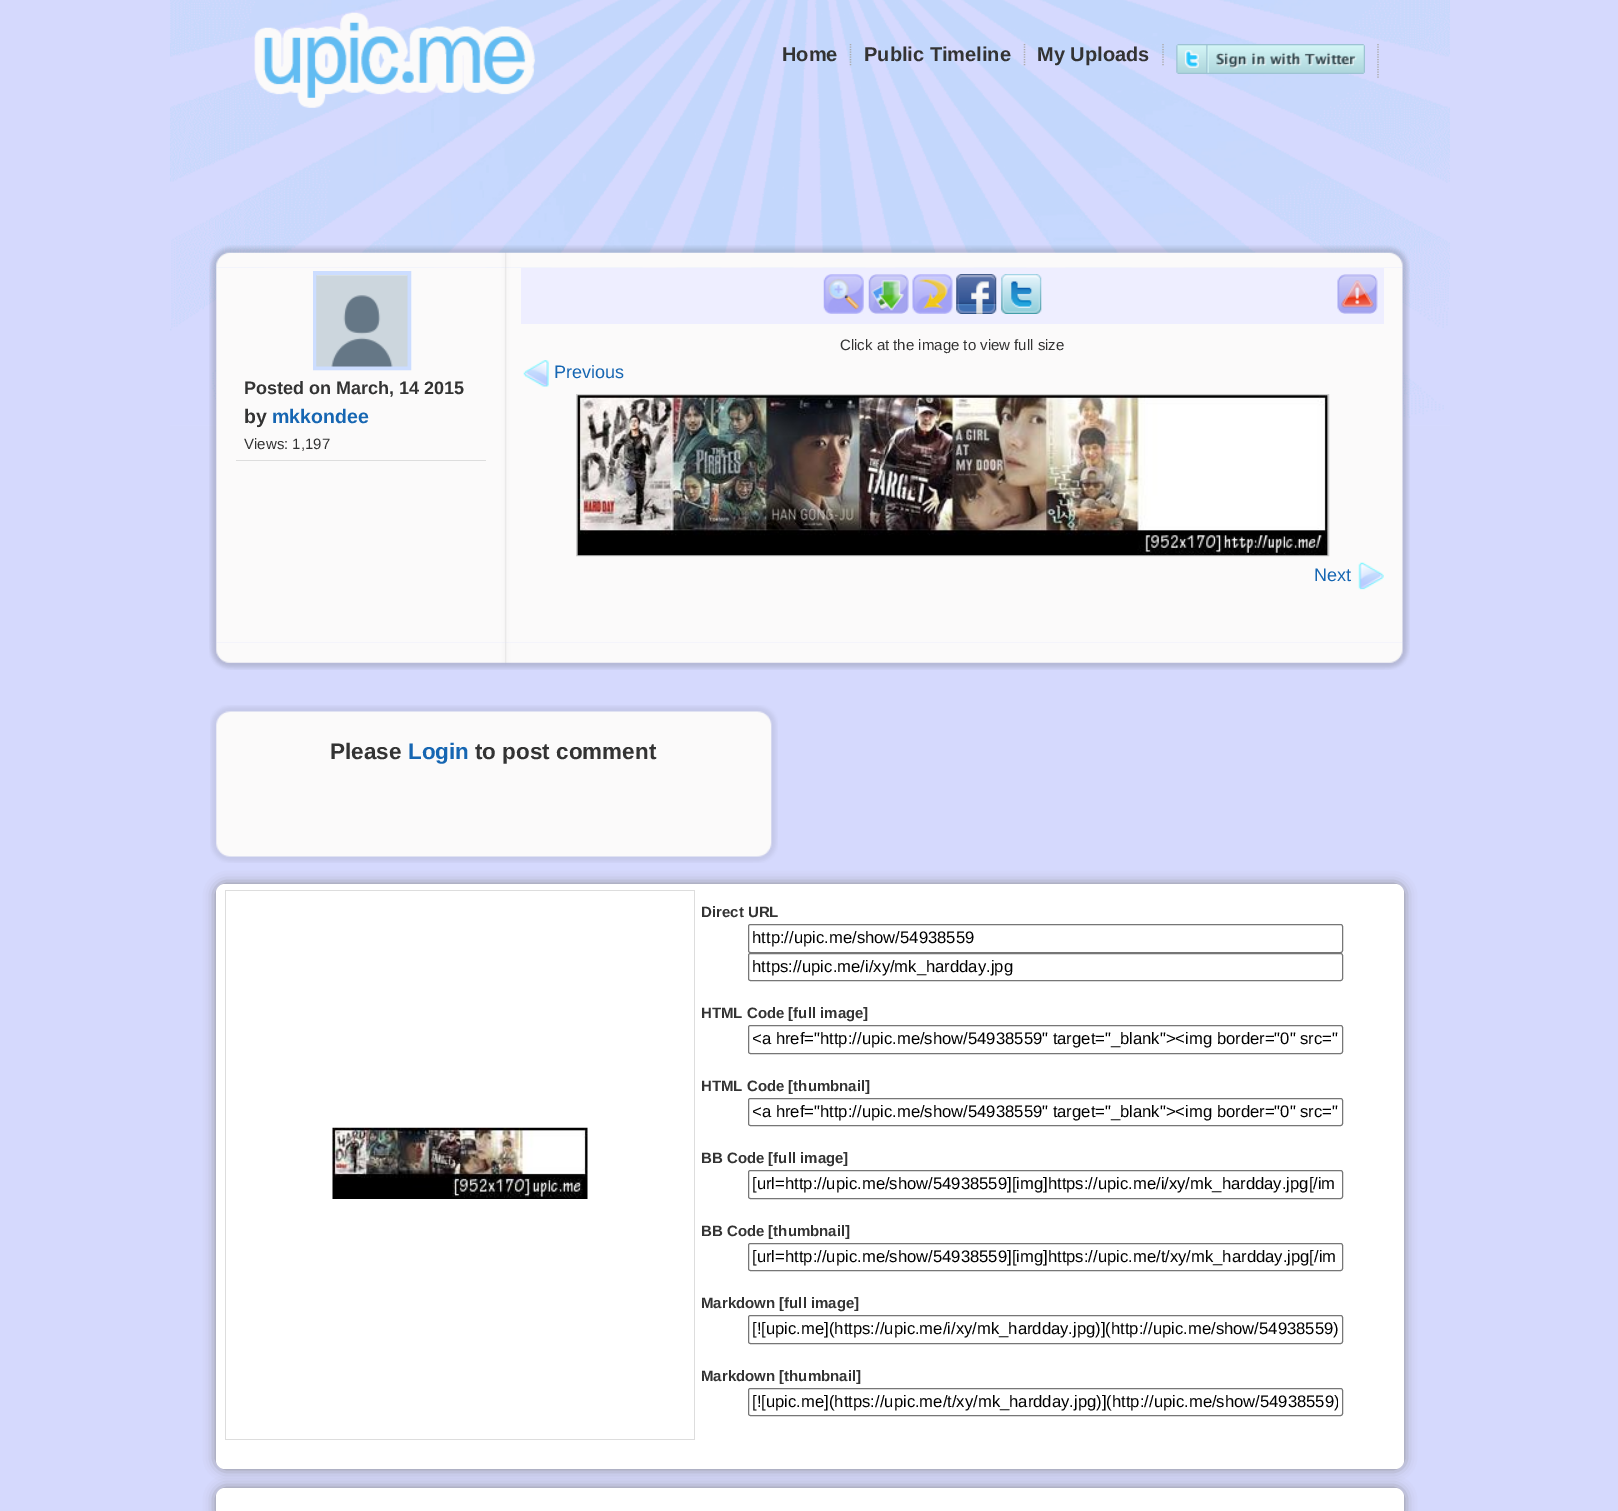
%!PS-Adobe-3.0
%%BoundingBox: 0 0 1618 1511
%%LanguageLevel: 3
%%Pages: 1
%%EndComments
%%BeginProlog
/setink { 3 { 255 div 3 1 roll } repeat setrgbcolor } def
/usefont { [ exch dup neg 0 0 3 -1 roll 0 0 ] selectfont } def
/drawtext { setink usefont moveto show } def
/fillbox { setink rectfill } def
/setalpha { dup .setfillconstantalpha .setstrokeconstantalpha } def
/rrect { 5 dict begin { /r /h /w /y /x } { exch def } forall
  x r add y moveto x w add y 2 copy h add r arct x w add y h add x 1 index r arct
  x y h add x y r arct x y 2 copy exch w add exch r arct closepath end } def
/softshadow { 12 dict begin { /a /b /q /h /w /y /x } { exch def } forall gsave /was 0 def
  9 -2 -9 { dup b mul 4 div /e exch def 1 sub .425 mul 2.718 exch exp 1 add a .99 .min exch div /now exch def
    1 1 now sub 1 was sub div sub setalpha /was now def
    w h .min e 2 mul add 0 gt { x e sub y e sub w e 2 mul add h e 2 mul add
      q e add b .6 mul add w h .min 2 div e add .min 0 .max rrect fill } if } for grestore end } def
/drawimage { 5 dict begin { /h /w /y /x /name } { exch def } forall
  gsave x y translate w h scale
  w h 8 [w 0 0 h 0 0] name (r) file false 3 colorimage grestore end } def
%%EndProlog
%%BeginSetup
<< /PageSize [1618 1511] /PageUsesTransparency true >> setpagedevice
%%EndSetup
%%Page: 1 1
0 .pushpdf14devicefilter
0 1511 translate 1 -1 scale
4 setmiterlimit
0 0 1618 1511 213 217 253 fillbox
(assets/img1.rgb) 170 0 1280 426 drawimage
(assets/img2.rgb) 254 12 282 96 drawimage
170 170 170 setink
1.2 setlinewidth
[1.25 1.25] 0 setdash
850.5 44 moveto 850.5 66 lineto stroke
(Home) 782 61 /LiberationSans-Bold 20 51 51 51 drawtext
170 170 170 setink
1024.5 44 moveto 1024.5 66 lineto stroke
(Public Timeline) 864 61 /LiberationSans-Bold 20 51 51 51 drawtext
170 170 170 setink
1163 44 moveto 1163 66 lineto stroke
(My Uploads) 1037 61 /LiberationSans-Bold 20 51 51 51 drawtext
170 170 170 setink
1378 44 moveto 1378 79 lineto stroke
(assets/img3.rgb) 1176 44 189 30 drawimage
(assets/img4.rgb) 209 245 1201 23 drawimage
(assets/img5.rgb) 209 267 1201 376 drawimage
236 460 250 1 221 221 221 fillbox
204 221 255 setink
4 setlinewidth
[] 0 setdash
315 273 94 95 rectstroke
(assets/img6.rgb) 316 275 92 92 drawimage
(Posted on March, 14 2015) 244 394 /LiberationSans-Bold 18 51 51 51 drawtext
(by) 244 423 /LiberationSans-Bold 19.5 51 51 51 drawtext
(mkkondee) 272 423 /LiberationSans-Bold 19.5 22 102 178 drawtext
(Views: 1,197) 244 449 /LiberationSans-Regular 15 51 51 51 drawtext
521 268 863 56 238 238 255 fillbox
(assets/img7.rgb) 823 274 41 40 drawimage
(assets/img8.rgb) 868 274 41 40 drawimage
(assets/img9.rgb) 912 274 41 40 drawimage
(assets/img10.rgb) 956 274 41 40 drawimage
(assets/img11.rgb) 1001 274 41 40 drawimage
(assets/img12.rgb) 1337 274 41 40 drawimage
(Click at the image to view full size) 840 350 /LiberationSans-Regular 15 51 51 51 drawtext
(assets/img13.rgb) 523 360 26 27 drawimage
(Previous) 554 378 /LiberationSans-Regular 18 22 102 178 drawtext
204 204 204 setink
1 setlinewidth
576.5 394.5 752 161 rectstroke
(assets/img14.rgb) 577 395 751 161 drawimage
(Next) 1314 581 /LiberationSans-Regular 18 22 102 178 drawtext
(assets/img15.rgb) 1358 562 26 28 drawimage
(assets/img16.rgb) 209 642 1201 28 drawimage
(assets/img17.rgb) 210 705 568 158 drawimage
(Please) 330 759 /LiberationSans-Bold 22.5 51 51 51 drawtext
(Login) 408 759 /LiberationSans-Bold 22.5 22 102 178 drawtext
(to post comment) 475 759 /LiberationSans-Bold 22.5 51 51 51 drawtext
136 136 136 setink
216 884 1188 585 9 6 1 softshadow
255 255 255 setink
216 884 1188 585 9 rrect fill
225 890 470 1 221 221 221 fillbox
694 890 1 550 221 221 221 fillbox
225 1439 470 1 221 221 221 fillbox
225 890 1 550 221 221 221 fillbox
(assets/img18.rgb) 332 1127 256 72 drawimage
(Direct URL) 701 917 /LiberationSans-Bold 15 51 51 51 drawtext
118 118 118 setink
748.5 924.5 594 28 2 rrect stroke
(http://upic.me/show/54938559) 752 943 /LiberationSans-Regular 16.65 0 0 0 drawtext
118 118 118 setink
748.5 953.5 594 27 2 rrect stroke
(https://upic.me/i/xy/mk_hardday.jpg) 752 972 /LiberationSans-Regular 16.65 0 0 0 drawtext
(HTML Code [full image]) 701 1018 /LiberationSans-Bold 15 51 51 51 drawtext
118 118 118 setink
748.5 1025.5 594 28 2 rrect stroke
gsave
753 1030 585 19 rectclip
(<a href="http://upic.me/show/54938559" target="_blank"><img border="0" src=") 752 1044 /LiberationSans-Regular 16.65 0 0 0 drawtext
grestore
(HTML Code [thumbnail]) 701 1091 /LiberationSans-Bold 15 51 51 51 drawtext
118 118 118 setink
748.5 1098.5 594 27 2 rrect stroke
gsave
753 1103 585 18 rectclip
(<a href="http://upic.me/show/54938559" target="_blank"><img border="0" src=") 752 1117 /LiberationSans-Regular 16.65 0 0 0 drawtext
grestore
(BB Code [full image]) 701 1163 /LiberationSans-Bold 15 51 51 51 drawtext
118 118 118 setink
748.5 1170.5 594 28 2 rrect stroke
([url=http://upic.me/show/54938559][img]https://upic.me/i/xy/mk_hardday.jpg[/im) 752 1189 /LiberationSans-Regular 16.65 0 0 0 drawtext
(BB Code [thumbnail]) 701 1236 /LiberationSans-Bold 15 51 51 51 drawtext
118 118 118 setink
748.5 1243.5 594 27 2 rrect stroke
([url=http://upic.me/show/54938559][img]https://upic.me/t/xy/mk_hardday.jpg[/im) 752 1262 /LiberationSans-Regular 16.65 0 0 0 drawtext
(Markdown [full image]) 701 1308 /LiberationSans-Bold 15 51 51 51 drawtext
118 118 118 setink
748.5 1315.5 594 28 2 rrect stroke
([![upic.me]\(https://upic.me/i/xy/mk_hardday.jpg\)]\(http://upic.me/show/54938559\)) 752 1334 /LiberationSans-Regular 16.65 0 0 0 drawtext
(Markdown [thumbnail]) 701 1381 /LiberationSans-Bold 15 51 51 51 drawtext
118 118 118 setink
748.5 1388.5 594 27 2 rrect stroke
gsave
753 1393 585 18 rectclip
([![upic.me]\(https://upic.me/t/xy/mk_hardday.jpg\)]\(http://upic.me/show/54938559\)) 752 1407 /LiberationSans-Regular 16.65 0 0 0 drawtext
grestore
136 136 136 setink
216 1488 1188 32 9 6 1 softshadow
255 255 255 setink
216 1488 1188 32 9 rrect fill
.poppdf14devicefilter showpage
%%EOF
